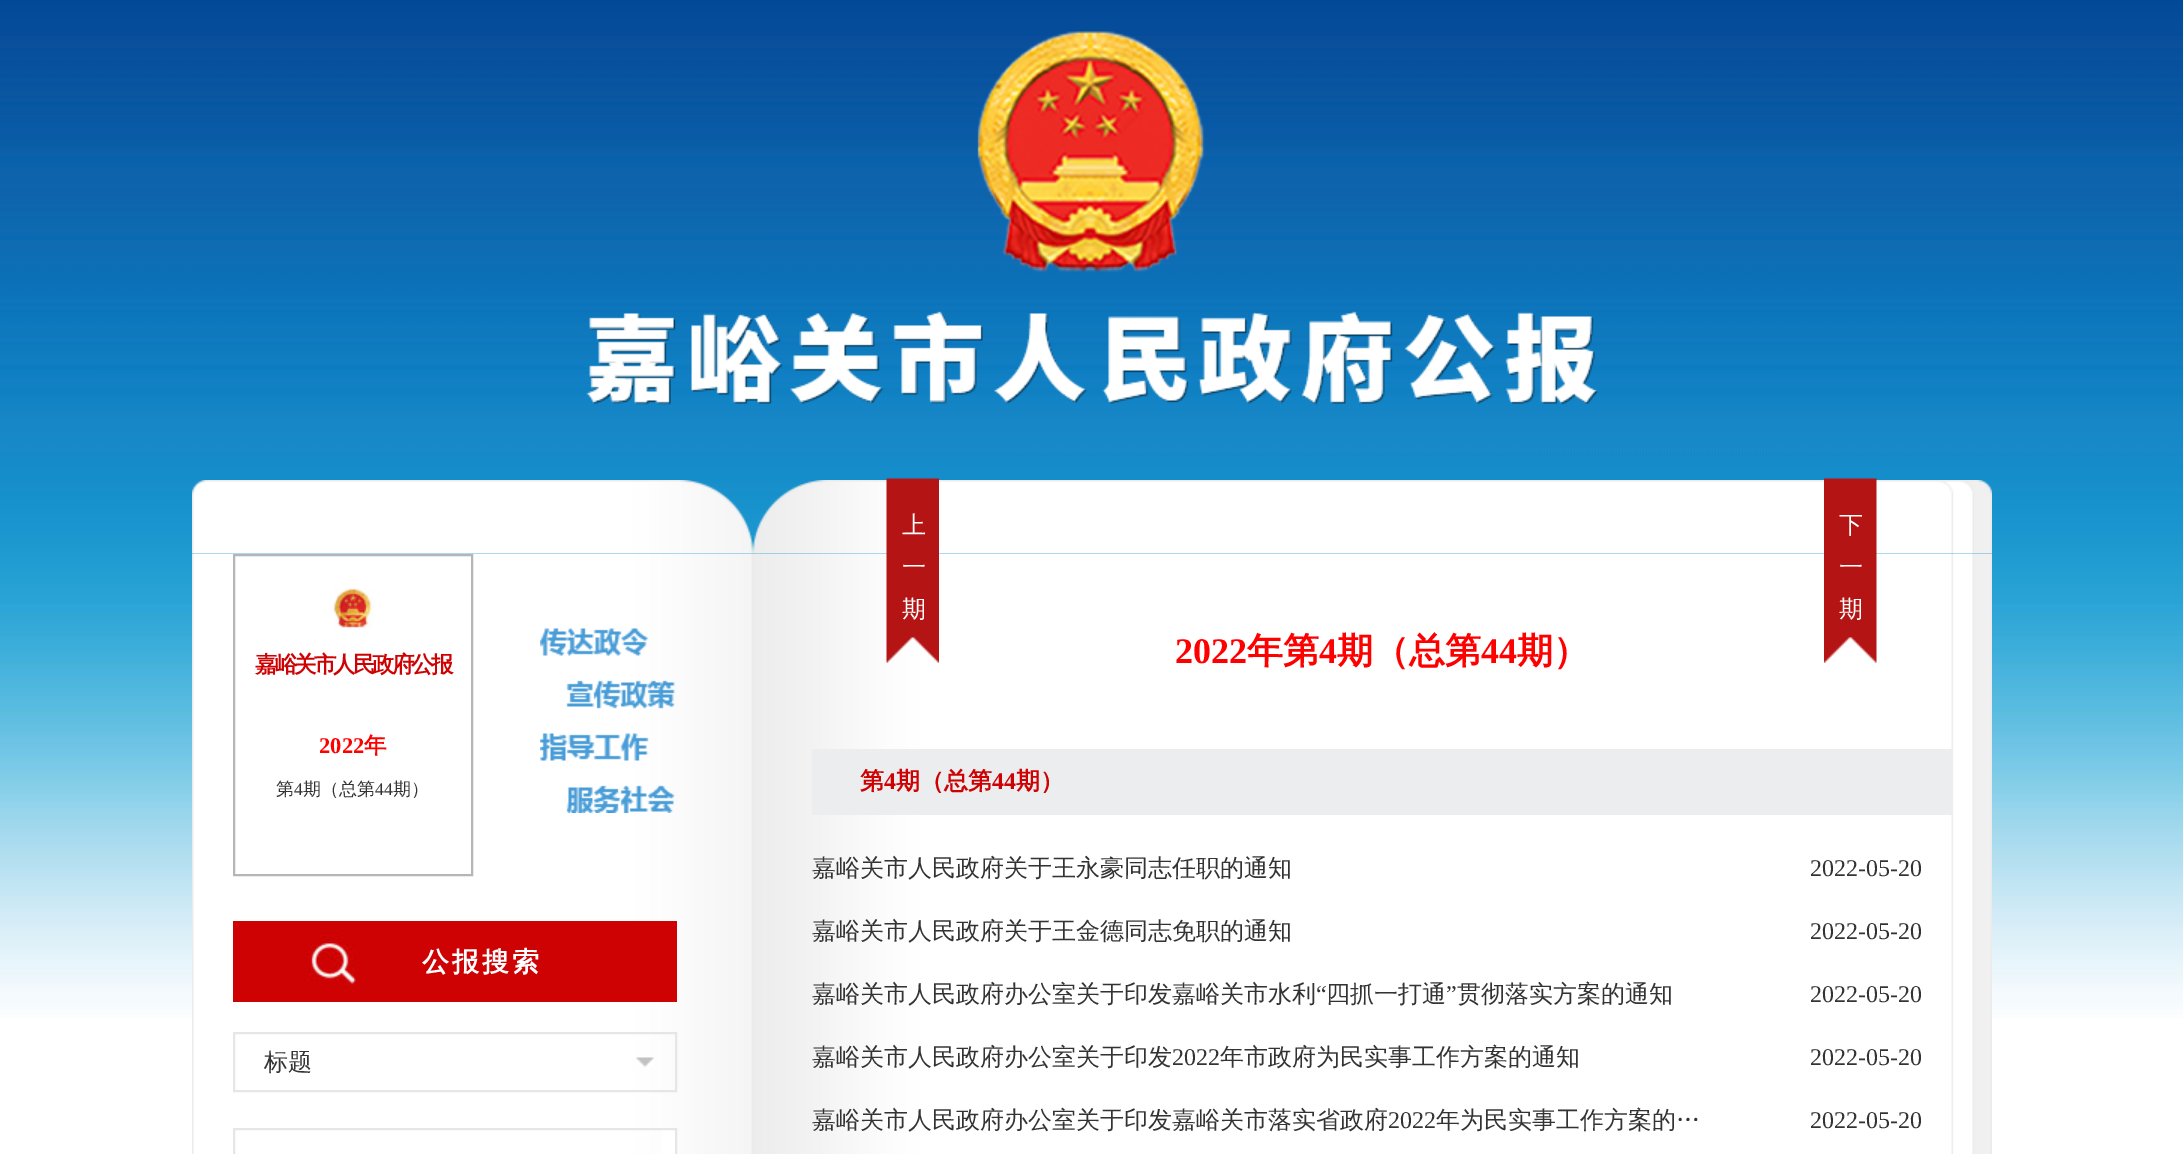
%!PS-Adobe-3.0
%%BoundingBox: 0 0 2183 1154
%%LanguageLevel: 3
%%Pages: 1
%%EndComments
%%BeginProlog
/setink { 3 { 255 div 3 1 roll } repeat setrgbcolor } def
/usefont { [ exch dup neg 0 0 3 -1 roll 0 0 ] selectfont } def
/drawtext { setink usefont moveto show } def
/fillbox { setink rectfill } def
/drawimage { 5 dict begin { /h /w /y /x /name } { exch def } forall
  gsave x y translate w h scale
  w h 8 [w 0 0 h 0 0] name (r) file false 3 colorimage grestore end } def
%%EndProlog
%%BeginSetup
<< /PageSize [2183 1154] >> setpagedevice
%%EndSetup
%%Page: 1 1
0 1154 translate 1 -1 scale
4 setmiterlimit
0 0 2183 1154 255 255 255 fillbox
(assets/img1.rgb) 0 0 2183 1019 drawimage
(assets/img2.rgb) 586 31 1012 374 drawimage
(assets/img3.rgb) 192 480 1800 74 drawimage
(assets/img4.rgb) 192 553 1800 601 drawimage
182 182 182 setink
2 setlinewidth
234 555 238 320 rectstroke
(assets/img5.rgb) 333 588 41 42 drawimage
/WenQuanYiZenHei-Bold 22.5 usefont
206 2 3 setink
255 672 moveto -3 0 (嘉峪关市人民政府公报) ashow
(2022) 319 753 /LiberationSerif-Bold 22.5 255 0 0 drawtext
(年) 364 753 /WenQuanYiZenHei-Bold 22.5 255 0 0 drawtext
(第) 276 795 /WenQuanYiZenHei-Medium 18 51 51 51 drawtext
(4) 294 795 /LiberationSerif-Regular 18 51 51 51 drawtext
(期（总第) 303 795 /WenQuanYiZenHei-Medium 18 51 51 51 drawtext
(44) 375 795 /LiberationSerif-Regular 18 51 51 51 drawtext
(期）) 393 795 /WenQuanYiZenHei-Medium 18 51 51 51 drawtext
(assets/img6.rgb) 540 628 135 185 drawimage
233 921 444 81 206 2 3 fillbox
(assets/img7.rgb) 307 933 49 60 drawimage
/WenQuanYiZenHei-Bold 27 usefont
255 255 255 setink
422 971 moveto 3 0 (公报搜索) ashow
(assets/img8.rgb) 636 1057 18 10 drawimage
230 230 230 setink
234 1033 442 58 rectstroke
(标题) 264 1070 /WenQuanYiZenHei-Medium 24 51 51 51 drawtext
662 1130 13 24 255 255 255 fillbox
230 230 230 setink
234 1129 442 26 rectstroke
(assets/img9.rgb) 886 478 53 185 drawimage
(上) 902 533 /WenQuanYiZenHei-Medium 24 255 255 255 drawtext
(一) 902 575 /WenQuanYiZenHei-Medium 24 255 255 255 drawtext
(期) 902 617 /WenQuanYiZenHei-Medium 24 255 255 255 drawtext
(assets/img10.rgb) 1824 478 53 185 drawimage
(下) 1839 533 /WenQuanYiZenHei-Medium 24 255 255 255 drawtext
(一) 1839 575 /WenQuanYiZenHei-Medium 24 255 255 255 drawtext
(期) 1839 617 /WenQuanYiZenHei-Medium 24 255 255 255 drawtext
(2022) 1175 663 /LiberationSerif-Bold 36 255 0 0 drawtext
(年第) 1247 663 /WenQuanYiZenHei-Bold 36 255 0 0 drawtext
(4) 1319 663 /LiberationSerif-Bold 36 255 0 0 drawtext
(期（总第) 1337 663 /WenQuanYiZenHei-Bold 36 255 0 0 drawtext
(44) 1481 663 /LiberationSerif-Bold 36 255 0 0 drawtext
(期）) 1517 663 /WenQuanYiZenHei-Bold 36 255 0 0 drawtext
812 749 1140 66 236 237 239 fillbox
(第) 860 789 /WenQuanYiZenHei-Bold 24 206 2 3 drawtext
(4) 884 789 /LiberationSerif-Bold 24 206 2 3 drawtext
(期（总第) 896 789 /WenQuanYiZenHei-Bold 24 206 2 3 drawtext
(44) 992 789 /LiberationSerif-Bold 24 206 2 3 drawtext
(期）) 1016 789 /WenQuanYiZenHei-Bold 24 206 2 3 drawtext
(嘉峪关市人民政府关于王永豪同志任职的通知) 812 876 /WenQuanYiZenHei-Medium 24 51 51 51 drawtext
(2022-05-20) 1810 876 /LiberationSerif-Regular 24 51 51 51 drawtext
(嘉峪关市人民政府关于王金德同志免职的通知) 812 939 /WenQuanYiZenHei-Medium 24 51 51 51 drawtext
(2022-05-20) 1810 939 /LiberationSerif-Regular 24 51 51 51 drawtext
(嘉峪关市人民政府办公室关于印发嘉峪关市水利) 812 1002 /WenQuanYiZenHei-Medium 24 51 51 51 drawtext
(“) 1316 1002 /LiberationSerif-Regular 24 51 51 51 drawtext
(四抓一打通) 1326 1002 /WenQuanYiZenHei-Medium 24 51 51 51 drawtext
(”) 1446 1002 /LiberationSerif-Regular 24 51 51 51 drawtext
(贯彻落实方案的通知) 1457 1002 /WenQuanYiZenHei-Medium 24 51 51 51 drawtext
(2022-05-20) 1810 1002 /LiberationSerif-Regular 24 51 51 51 drawtext
(嘉峪关市人民政府办公室关于印发) 812 1065 /WenQuanYiZenHei-Medium 24 51 51 51 drawtext
(2022) 1172 1065 /LiberationSerif-Regular 24 51 51 51 drawtext
(年市政府为民实事工作方案的通知) 1220 1065 /WenQuanYiZenHei-Medium 24 51 51 51 drawtext
(2022-05-20) 1810 1065 /LiberationSerif-Regular 24 51 51 51 drawtext
(嘉峪关市人民政府办公室关于印发嘉峪关市落实省政府) 812 1128 /WenQuanYiZenHei-Medium 24 51 51 51 drawtext
(2022) 1388 1128 /LiberationSerif-Regular 24 51 51 51 drawtext
(年为民实事工作方案的…) 1436 1128 /WenQuanYiZenHei-Medium 24 51 51 51 drawtext
(2022-05-20) 1810 1128 /LiberationSerif-Regular 24 51 51 51 drawtext
showpage
%%EOF
